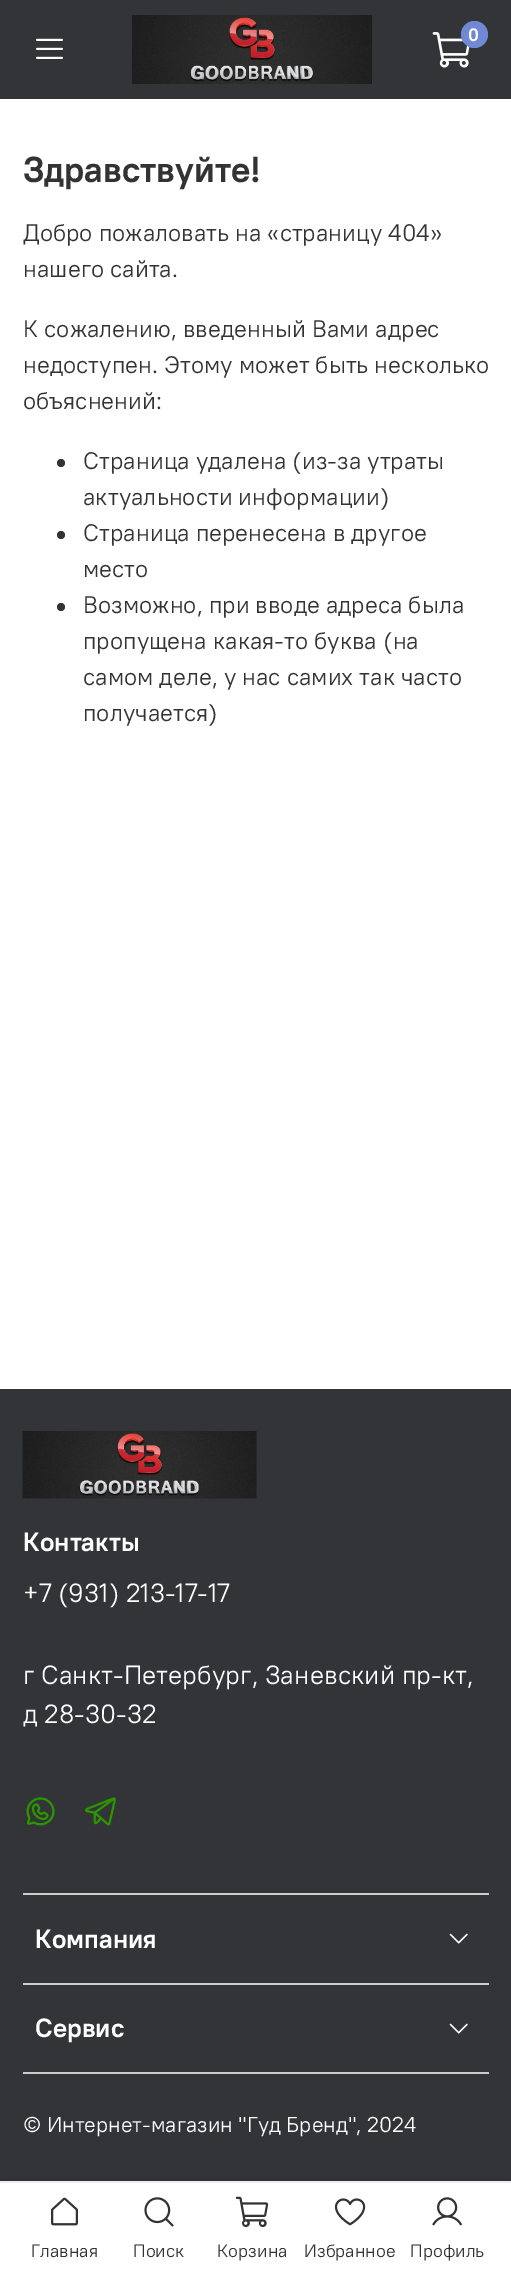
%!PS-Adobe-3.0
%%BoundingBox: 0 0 511 2273
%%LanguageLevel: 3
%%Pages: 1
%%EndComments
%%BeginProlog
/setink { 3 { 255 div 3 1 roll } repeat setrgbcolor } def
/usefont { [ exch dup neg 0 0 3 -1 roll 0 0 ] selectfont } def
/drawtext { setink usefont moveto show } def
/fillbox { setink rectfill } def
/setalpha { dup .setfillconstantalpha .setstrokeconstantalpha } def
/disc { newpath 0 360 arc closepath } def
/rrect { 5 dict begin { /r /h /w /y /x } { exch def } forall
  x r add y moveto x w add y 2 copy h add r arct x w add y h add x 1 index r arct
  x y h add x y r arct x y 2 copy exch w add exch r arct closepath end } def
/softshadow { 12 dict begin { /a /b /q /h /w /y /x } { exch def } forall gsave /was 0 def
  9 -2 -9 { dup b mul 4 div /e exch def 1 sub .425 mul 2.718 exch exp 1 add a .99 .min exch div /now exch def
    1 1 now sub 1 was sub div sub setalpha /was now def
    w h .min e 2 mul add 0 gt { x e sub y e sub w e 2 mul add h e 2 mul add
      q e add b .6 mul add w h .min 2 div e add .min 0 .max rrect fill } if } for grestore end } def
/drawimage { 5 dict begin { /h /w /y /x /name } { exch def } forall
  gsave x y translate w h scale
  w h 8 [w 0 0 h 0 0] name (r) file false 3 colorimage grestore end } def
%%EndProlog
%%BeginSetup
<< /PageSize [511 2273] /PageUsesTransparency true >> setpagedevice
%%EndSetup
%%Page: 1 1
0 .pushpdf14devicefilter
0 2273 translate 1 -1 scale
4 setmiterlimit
0 0 511 2273 255 255 255 fillbox
0 0 511 99 51 52 55 fillbox
(assets/img1.rgb) 132 15 240 69 drawimage
(assets/img2.rgb) 432 32 38 36 drawimage
113 136 212 setink
474.5 34.5 13.5 disc fill
(0) 468 41 /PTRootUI-Bold 18 255 255 255 drawtext
(assets/img3.rgb) 36 38 27 21 drawimage
(Здравствуйте!) 23 182 /PTRootUI-Bold 36 51 51 51 drawtext
(Добро пожаловать на «страницу 404») 23 241 /PTRootUI-Regular 24 51 51 51 drawtext
(нашего сайта.) 23 277 /PTRootUI-Regular 24 51 51 51 drawtext
(К сожалению, введенный Вами адрес) 23 337 /PTRootUI-Regular 24 51 51 51 drawtext
(недоступен. Этому может быть несколько) 23 373 /PTRootUI-Regular 24 51 51 51 drawtext
(объяснений:) 23 409 /PTRootUI-Regular 24 51 51 51 drawtext
61 463 4 disc fill
(Страница удалена \(из-за утраты) 83 469 /PTRootUI-Regular 24 51 51 51 drawtext
(актуальности информации\)) 83 505 /PTRootUI-Regular 24 51 51 51 drawtext
61 535 4 disc fill
(Страница перенесена в другое) 83 541 /PTRootUI-Regular 24 51 51 51 drawtext
(место) 83 577 /PTRootUI-Regular 24 51 51 51 drawtext
61 607 4 disc fill
(Возможно, при вводе адреса была) 83 613 /PTRootUI-Regular 24 51 51 51 drawtext
(пропущена какая-то буква \(на) 83 649 /PTRootUI-Regular 24 51 51 51 drawtext
(самом деле, у нас самих так часто) 83 685 /PTRootUI-Regular 24 51 51 51 drawtext
(получается\)) 83 721 /PTRootUI-Regular 24 51 51 51 drawtext
0 1389 511 792 51 52 55 fillbox
(assets/img4.rgb) 22 1431 235 68 drawimage
(Контакты) 23 1551 /PTRootUI-Bold 26.4 255 255 255 drawtext
(+7 \(931\) 213-17-17) 23 1602 /PTRootUI-Regular 26.4 255 255 255 drawtext
(г Санкт-Петербург, Заневский пр-кт,) 23 1684 /PTRootUI-Regular 26.4 255 255 255 drawtext
(д 28-30-32) 23 1723 /PTRootUI-Regular 26.4 255 255 255 drawtext
(assets/img5.rgb) 26 1797 29 29 drawimage
(assets/img6.rgb) 85 1797 31 29 drawimage
23 1893 466 2 204 204 204 fillbox
(Компания) 35 1948 /PTRootUI-Bold 26.4 255 255 255 drawtext
(assets/img7.rgb) 449 1933 19 11 drawimage
23 1983 466 2 204 204 204 fillbox
23 2072 466 2 204 204 204 fillbox
(Сервис) 35 2037 /PTRootUI-Bold 26.4 255 255 255 drawtext
(assets/img7.rgb) 449 2023 19 11 drawimage
(© Интернет-магазин "Гуд Бренд", 2024) 23 2132 /PTRootUI-Regular 21.6 255 255 255 drawtext
0 0 0 setink
0 2184 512 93 0 7.5 0.12 softshadow
0 2183 511 90 255 255 255 fillbox
0 2181 511 2 237 237 237 fillbox
(assets/img8.rgb) 51 2197 27 29 drawimage
(Главная) 31 2257 /PTRootUI-Regular 18 51 51 51 drawtext
(assets/img9.rgb) 144 2197 30 30 drawimage
(Поиск) 133 2257 /PTRootUI-Regular 18 51 51 51 drawtext
(assets/img10.rgb) 235 2196 34 32 drawimage
(Корзина) 217 2257 /PTRootUI-Regular 18 51 51 51 drawtext
(assets/img11.rgb) 334 2198 32 28 drawimage
(Избранное) 304 2257 /PTRootUI-Regular 18 51 51 51 drawtext
(assets/img12.rgb) 432 2197 30 29 drawimage
(Профиль) 410 2257 /PTRootUI-Regular 18 51 51 51 drawtext
.poppdf14devicefilter showpage
%%EOF
